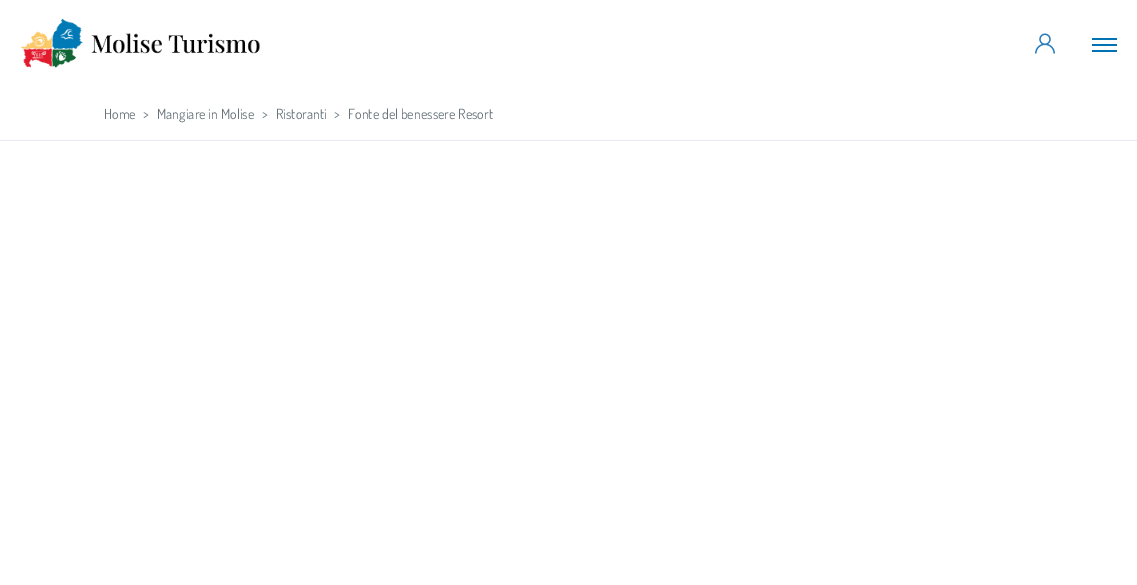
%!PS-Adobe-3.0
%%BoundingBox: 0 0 1137 585
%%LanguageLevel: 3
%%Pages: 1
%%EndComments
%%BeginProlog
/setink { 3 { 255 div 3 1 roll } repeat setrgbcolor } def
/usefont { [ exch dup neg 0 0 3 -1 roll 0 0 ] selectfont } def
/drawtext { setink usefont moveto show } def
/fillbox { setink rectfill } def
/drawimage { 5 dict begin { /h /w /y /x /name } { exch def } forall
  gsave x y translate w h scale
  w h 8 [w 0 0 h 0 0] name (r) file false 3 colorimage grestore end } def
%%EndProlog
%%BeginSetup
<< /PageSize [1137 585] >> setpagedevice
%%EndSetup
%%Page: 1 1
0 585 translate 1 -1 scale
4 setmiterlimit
0 0 1137 585 255 255 255 fillbox
(assets/img1.rgb) 21 18 239 50 drawimage
(assets/img2.rgb) 1035 33 20 21 drawimage
1092 38 25 2 2 115 178 fillbox
1092 44 25 2 2 115 178 fillbox
1092 50 25 2 2 115 178 fillbox
0 140 1137 1 231 234 243 fillbox
(Home) 104 119 /Dosis-Regular 14 103 116 124 drawtext
(>) 143 119 /Dosis-Regular 14 103 116 124 drawtext
(Mangiare in Molise) 157 119 /Dosis-Regular 14 103 116 124 drawtext
(>) 262 119 /Dosis-Regular 14 103 116 124 drawtext
(Ristoranti) 276 119 /Dosis-Regular 14 103 116 124 drawtext
(>) 334 119 /Dosis-Regular 14 103 116 124 drawtext
(Fonte del benessere Resort) 348 119 /Dosis-Regular 14 103 116 124 drawtext
showpage
%%EOF
